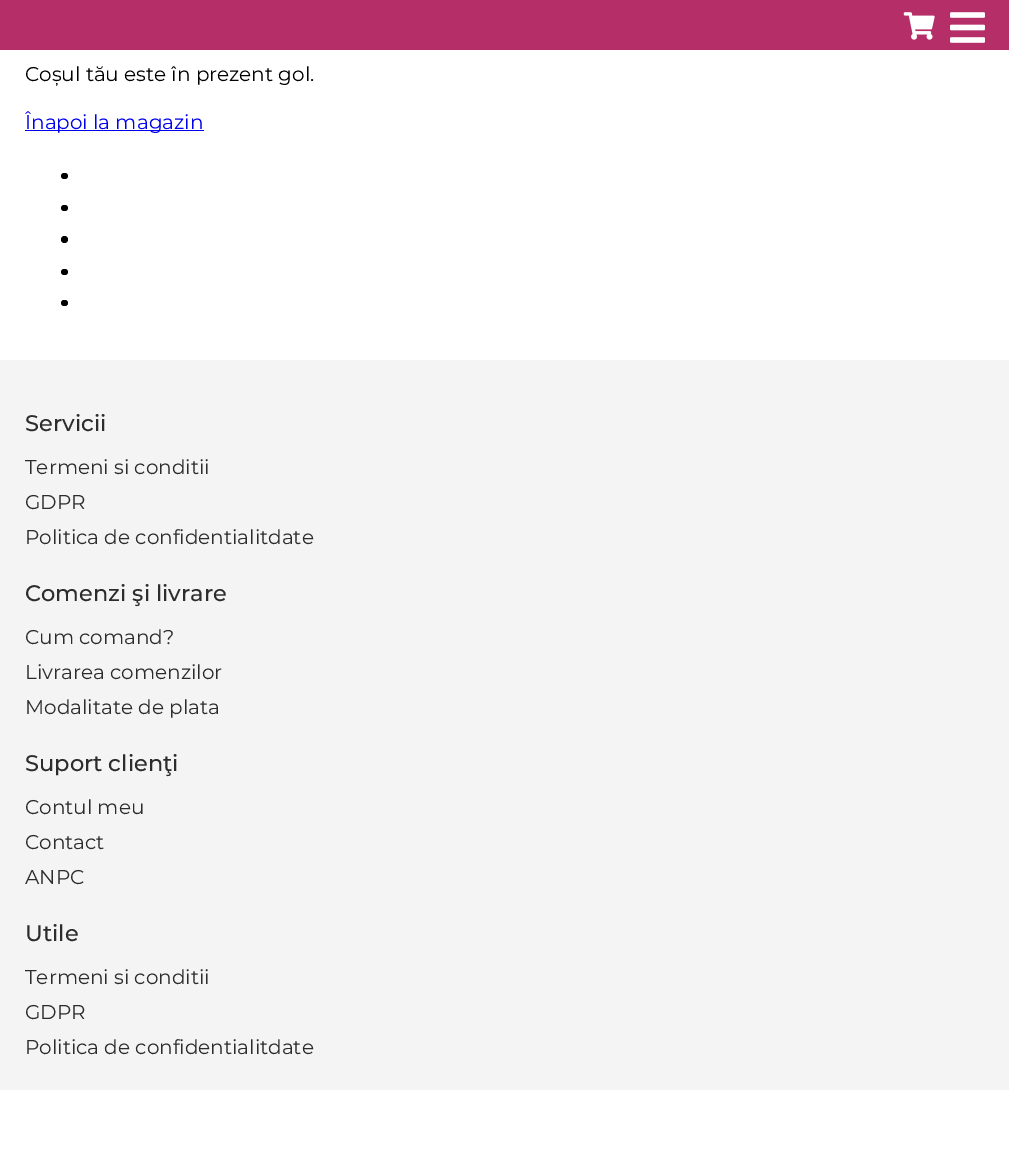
%!PS-Adobe-3.0
%%BoundingBox: 0 0 1009 1175
%%LanguageLevel: 3
%%Pages: 1
%%EndComments
%%BeginProlog
/setink { 3 { 255 div 3 1 roll } repeat setrgbcolor } def
/usefont { [ exch dup neg 0 0 3 -1 roll 0 0 ] selectfont } def
/drawtext { setink usefont moveto show } def
/fillbox { setink rectfill } def
/disc { newpath 0 360 arc closepath } def
/rrect { 5 dict begin { /r /h /w /y /x } { exch def } forall
  x r add y moveto x w add y 2 copy h add r arct x w add y h add x 1 index r arct
  x y h add x y r arct x y 2 copy exch w add exch r arct closepath end } def
/drawimage { 5 dict begin { /h /w /y /x /name } { exch def } forall
  gsave x y translate w h scale
  w h 8 [w 0 0 h 0 0] name (r) file false 3 colorimage grestore end } def
%%EndProlog
%%BeginSetup
<< /PageSize [1009 1175] >> setpagedevice
%%EndSetup
%%Page: 1 1
0 1175 translate 1 -1 scale
4 setmiterlimit
0 0 1009 1175 255 255 255 fillbox
0 0 1009 50 182 46 103 fillbox
(assets/img1.rgb) 903 12 32 28 drawimage
(assets/img2.rgb) 950 12 35 31 drawimage
(Coșul tău este în prezent gol.) 25 81 /Montserrat-Regular 20 0 0 0 drawtext
25 130 179 1 0 0 238 fillbox
(Înapoi la magazin) 25 129 /Montserrat-Regular 20 0 0 238 drawtext
0 0 0 setink
61 173 7 6 3 rrect fill
61 205 7 6 3 rrect fill
64.5 239.5 3.5 disc fill
61 269 7 6 3 rrect fill
61 300 7 6 3 rrect fill
0 360 1009 730 244 244 244 fillbox
(Servicii) 25 431 /Montserrat-Medium 22.5 44 44 44 drawtext
(Termeni si conditii) 25 474 /Montserrat-Regular 20 44 44 44 drawtext
(GDPR) 25 509 /Montserrat-Regular 20 44 44 44 drawtext
(Politica de confidentialitdate) 25 544 /Montserrat-Regular 20 44 44 44 drawtext
(Comenzi şi livrare) 25 601 /Montserrat-Medium 22.5 44 44 44 drawtext
(Cum comand?) 25 644 /Montserrat-Regular 20 44 44 44 drawtext
(Livrarea comenzilor) 25 679 /Montserrat-Regular 20 44 44 44 drawtext
(Modalitate de plata) 25 714 /Montserrat-Regular 20 44 44 44 drawtext
(Suport clienţi) 25 771 /Montserrat-Medium 22.5 44 44 44 drawtext
(Contul meu) 25 814 /Montserrat-Regular 20 44 44 44 drawtext
(Contact) 25 849 /Montserrat-Regular 20 44 44 44 drawtext
(ANPC) 25 884 /Montserrat-Regular 20 44 44 44 drawtext
(Utile) 25 941 /Montserrat-Medium 22.5 44 44 44 drawtext
(Termeni si conditii) 25 984 /Montserrat-Regular 20 44 44 44 drawtext
(GDPR) 25 1019 /Montserrat-Regular 20 44 44 44 drawtext
(Politica de confidentialitdate) 25 1054 /Montserrat-Regular 20 44 44 44 drawtext
showpage
%%EOF
